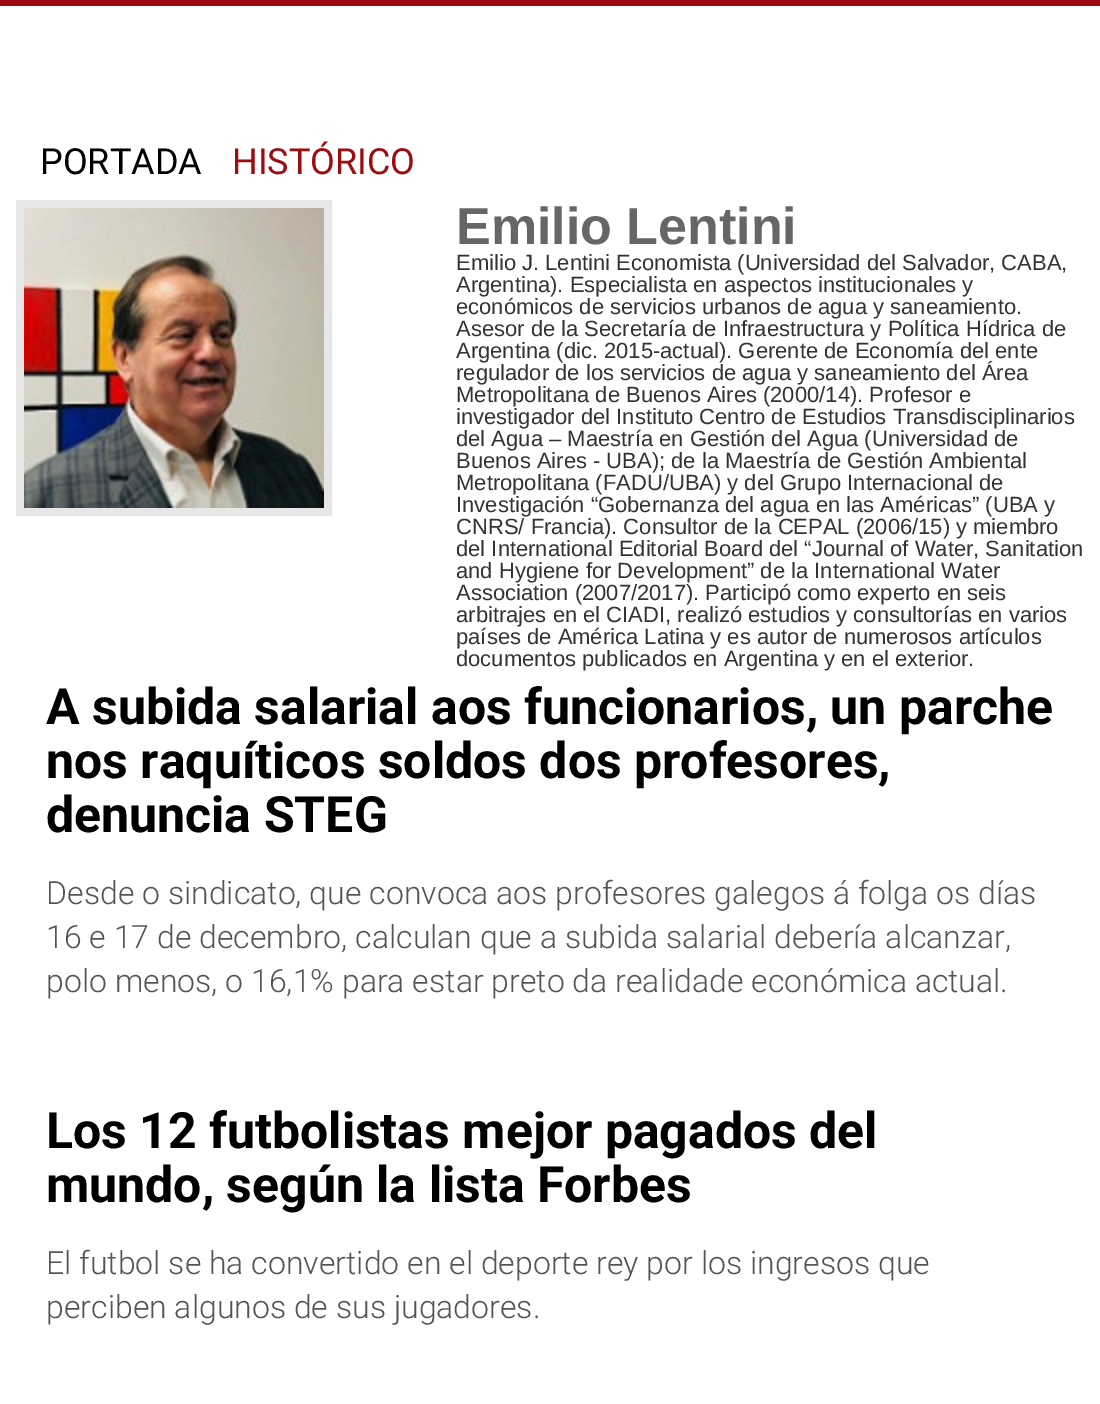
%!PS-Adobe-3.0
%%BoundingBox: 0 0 1100 1404
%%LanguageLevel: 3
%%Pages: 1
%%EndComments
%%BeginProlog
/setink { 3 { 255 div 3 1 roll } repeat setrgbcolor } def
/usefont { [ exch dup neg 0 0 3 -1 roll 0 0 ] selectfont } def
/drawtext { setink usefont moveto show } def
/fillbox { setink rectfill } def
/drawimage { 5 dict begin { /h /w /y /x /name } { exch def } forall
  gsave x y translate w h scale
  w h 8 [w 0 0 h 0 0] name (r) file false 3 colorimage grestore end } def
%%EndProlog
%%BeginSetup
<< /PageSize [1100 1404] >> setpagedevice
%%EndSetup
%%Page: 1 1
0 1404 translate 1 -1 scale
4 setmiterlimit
0 0 1100 1404 255 255 255 fillbox
0 0 1100 6 157 12 16 fillbox
(PORTADA) 40 174 /Roboto-Regular 36 0 0 0 drawtext
(HISTÓRICO) 232 174 /Roboto-Regular 36 157 12 16 drawtext
231 231 231 setink
8 setlinewidth
20 204 308 308 rectstroke
(assets/img1.rgb) 24 208 300 300 drawimage
(Emilio Lentini) 456 244 /LiberationSans-Bold 52 102 102 102 drawtext
(Emilio J. Lentini Economista \(Universidad del Salvador, CABA,) 456 270 /LiberationSans-Regular 22 51 51 51 drawtext
(Argentina\). Especialista en aspectos institucionales y) 456 292 /LiberationSans-Regular 22 51 51 51 drawtext
(económicos de servicios urbanos de agua y saneamiento.) 456 314 /LiberationSans-Regular 22 51 51 51 drawtext
(Asesor de la Secretaría de Infraestructura y Política Hídrica de) 456 336 /LiberationSans-Regular 22 51 51 51 drawtext
(Argentina \(dic. 2015-actual\). Gerente de Economía del ente) 456 358 /LiberationSans-Regular 22 51 51 51 drawtext
(regulador de los servicios de agua y saneamiento del Área) 456 380 /LiberationSans-Regular 22 51 51 51 drawtext
(Metropolitana de Buenos Aires \(2000/14\). Profesor e) 456 402 /LiberationSans-Regular 22 51 51 51 drawtext
(investigador del Instituto Centro de Estudios Transdisciplinarios) 456 424 /LiberationSans-Regular 22 51 51 51 drawtext
(del Agua – Maestría en Gestión del Agua \(Universidad de) 456 446 /LiberationSans-Regular 22 51 51 51 drawtext
(Buenos Aires - UBA\); de la Maestría de Gestión Ambiental) 456 468 /LiberationSans-Regular 22 51 51 51 drawtext
(Metropolitana \(FADU/UBA\) y del Grupo Internacional de) 456 490 /LiberationSans-Regular 22 51 51 51 drawtext
(Investigación “Gobernanza del agua en las Américas” \(UBA y) 456 512 /LiberationSans-Regular 22 51 51 51 drawtext
(CNRS/ Francia\). Consultor de la CEPAL \(2006/15\) y miembro) 456 534 /LiberationSans-Regular 22 51 51 51 drawtext
(del International Editorial Board del “Journal of Water, Sanitation) 456 556 /LiberationSans-Regular 22 51 51 51 drawtext
(and Hygiene for Development” de la International Water) 456 578 /LiberationSans-Regular 22 51 51 51 drawtext
(Association \(2007/2017\). Participó como experto en seis) 456 600 /LiberationSans-Regular 22 51 51 51 drawtext
(arbitrajes en el CIADI, realizó estudios y consultorías en varios) 456 622 /LiberationSans-Regular 22 51 51 51 drawtext
(países de América Latina y es autor de numerosos artículos) 456 644 /LiberationSans-Regular 22 51 51 51 drawtext
(documentos publicados en Argentina y en el exterior.) 456 666 /LiberationSans-Regular 22 51 51 51 drawtext
(A subida salarial aos funcionarios, un parche) 46 724 /Roboto-Bold 50 0 0 0 drawtext
(nos raquíticos soldos dos profesores,) 46 778 /Roboto-Bold 50 0 0 0 drawtext
(denuncia STEG) 46 832 /Roboto-Bold 50 0 0 0 drawtext
(Desde o sindicato, que convoca aos profesores galegos á folga os días) 46 904 /Roboto-Light 32 84 84 84 drawtext
(16 e 17 de decembro, calculan que a subida salarial debería alcanzar,) 46 948 /Roboto-Light 32 84 84 84 drawtext
(polo menos, o 16,1% para estar preto da realidade económica actual.) 46 992 /Roboto-Light 32 84 84 84 drawtext
(Los 12 futbolistas mejor pagados del) 46 1148 /Roboto-Bold 50 0 0 0 drawtext
(mundo, según la lista Forbes) 46 1202 /Roboto-Bold 50 0 0 0 drawtext
(El futbol se ha convertido en el deporte rey por los ingresos que) 46 1274 /Roboto-Light 32 84 84 84 drawtext
(perciben algunos de sus jugadores.) 46 1318 /Roboto-Light 32 84 84 84 drawtext
showpage
%%EOF
